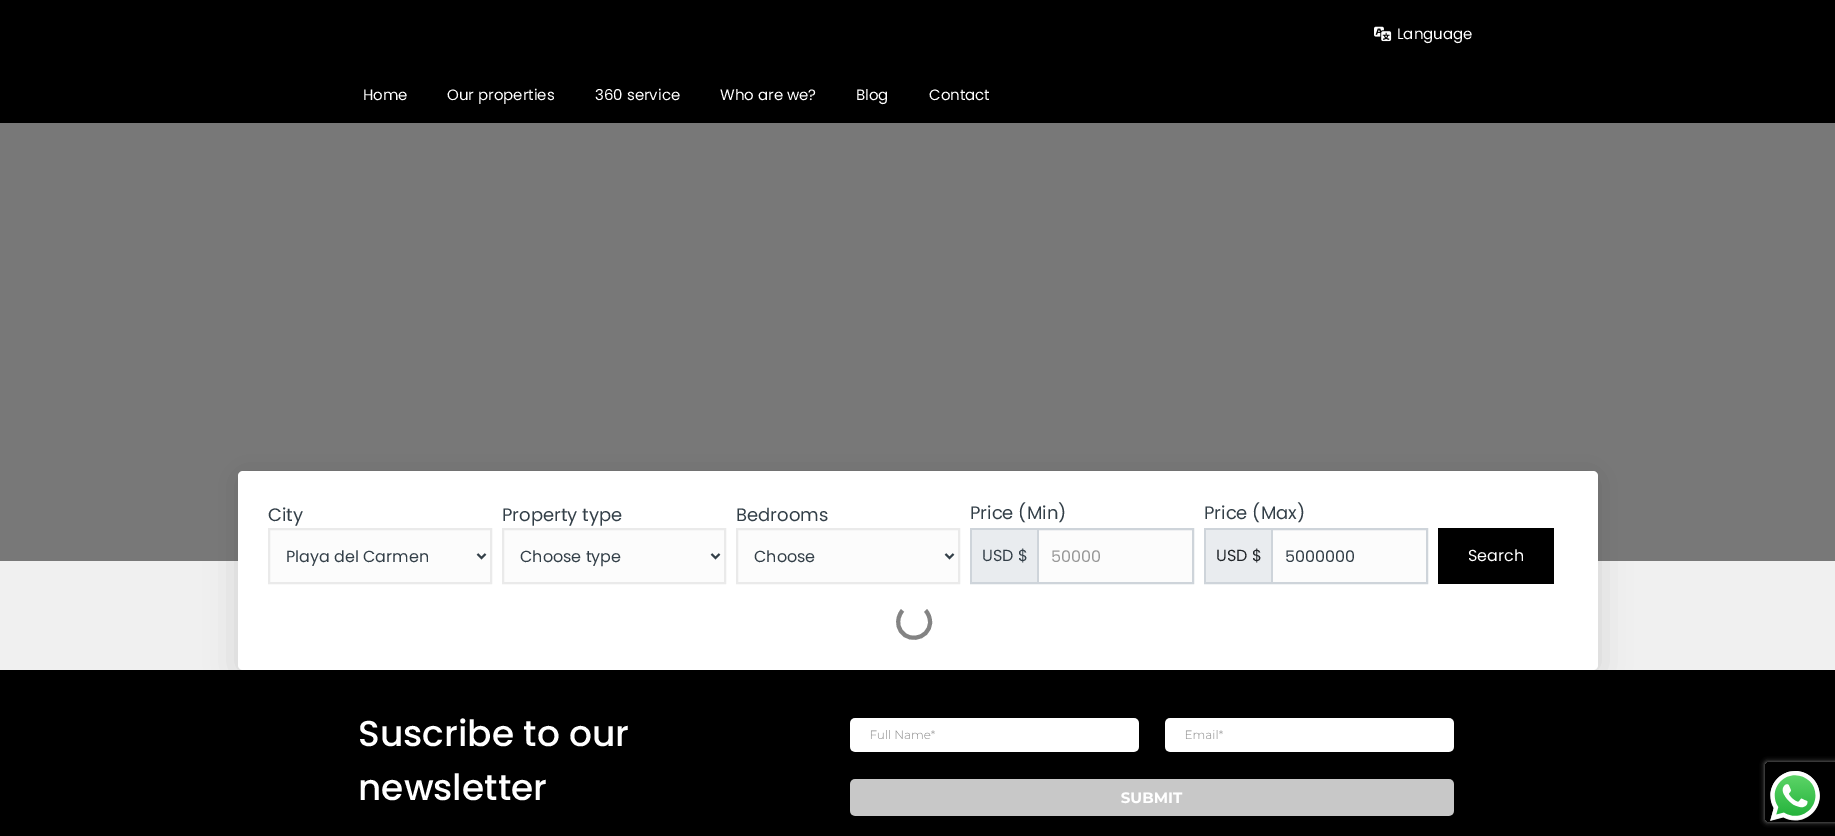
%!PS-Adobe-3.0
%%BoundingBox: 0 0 1835 836
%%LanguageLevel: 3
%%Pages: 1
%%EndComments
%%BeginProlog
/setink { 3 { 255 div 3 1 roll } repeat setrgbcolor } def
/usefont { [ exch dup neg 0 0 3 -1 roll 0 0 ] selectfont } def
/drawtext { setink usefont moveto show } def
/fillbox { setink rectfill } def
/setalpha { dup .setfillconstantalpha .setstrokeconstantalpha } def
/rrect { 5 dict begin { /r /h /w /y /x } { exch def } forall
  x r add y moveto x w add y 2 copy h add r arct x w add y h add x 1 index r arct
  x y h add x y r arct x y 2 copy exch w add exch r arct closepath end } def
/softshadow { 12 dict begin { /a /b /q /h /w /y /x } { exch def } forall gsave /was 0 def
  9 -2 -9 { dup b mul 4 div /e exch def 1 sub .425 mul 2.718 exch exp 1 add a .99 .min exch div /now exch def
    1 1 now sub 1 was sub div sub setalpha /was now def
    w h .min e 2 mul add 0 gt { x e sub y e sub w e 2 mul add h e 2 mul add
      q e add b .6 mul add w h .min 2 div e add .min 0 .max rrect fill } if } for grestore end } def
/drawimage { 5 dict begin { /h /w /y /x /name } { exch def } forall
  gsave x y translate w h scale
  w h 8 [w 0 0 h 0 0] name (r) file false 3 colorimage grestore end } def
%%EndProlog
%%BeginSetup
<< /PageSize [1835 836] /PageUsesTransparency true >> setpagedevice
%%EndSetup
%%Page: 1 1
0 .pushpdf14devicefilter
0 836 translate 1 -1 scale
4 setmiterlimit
0 0 1835 836 240 240 240 fillbox
0 0 1835 123 0 0 0 fillbox
(assets/img1.rgb) 1374 26 18 16 drawimage
(Language) 1397 39 /Poppins-Regular 15 255 255 255 drawtext
(Home) 363 100 /Poppins-Regular 15 255 255 255 drawtext
(Our properties) 447 100 /Poppins-Regular 15 255 255 255 drawtext
(360 service) 595 100 /Poppins-Regular 15 255 255 255 drawtext
(Who are we?) 720 100 /Poppins-Regular 15 255 255 255 drawtext
(Blog) 856 100 /Poppins-Regular 15 255 255 255 drawtext
(Contact) 929 100 /Poppins-Regular 15 255 255 255 drawtext
0 123 1835 438 120 120 120 fillbox
0 670 1835 166 0 0 0 fillbox
(assets/img2.rgb) 850 718 604 98 drawimage
238 474 1360 199 5 16 0.13 softshadow
255 255 255 setink
238 471 1360 199 5 rrect fill
(City) 268 521 /Poppins-Regular 18 51 63 72 drawtext
252 252 252 setink
269 529 moveto 491 529 lineto 491 583 lineto 269 583 lineto closepath gsave fill grestore
234 234 234 setink
2 setlinewidth
stroke
51 63 72 setink
477.5 554 moveto 481.5 558 lineto 485.5 554 lineto stroke
(Playa del Carmen) 286 562 /Poppins-Regular 16 51 63 72 drawtext
(Property type) 502 521 /Poppins-Regular 18 51 63 72 drawtext
252 252 252 setink
503 529 moveto 725 529 lineto 725 583 lineto 503 583 lineto closepath gsave fill grestore
234 234 234 setink
stroke
51 63 72 setink
711.5 554 moveto 715.5 558 lineto 719.5 554 lineto stroke
(Choose type) 520 562 /Poppins-Regular 16 51 63 72 drawtext
(Bedrooms) 736 521 /Poppins-Regular 18 51 63 72 drawtext
252 252 252 setink
737 529 moveto 959 529 lineto 959 583 lineto 737 583 lineto closepath gsave fill grestore
234 234 234 setink
stroke
51 63 72 setink
945.5 554 moveto 949.5 558 lineto 953.5 554 lineto stroke
(Choose) 754 562 /Poppins-Regular 16 51 63 72 drawtext
(Price \(Min\)) 970 519 /Poppins-Regular 18 51 63 72 drawtext
1039 530 153 52 252 252 252 fillbox
206 212 218 setink
971 529 222 54 rectstroke
972 530 65 52 233 236 239 fillbox
1037 530 2 52 206 212 218 fillbox
(USD $) 982 561 /Poppins-Regular 16 51 63 72 drawtext
(50000) 1051 562 /Poppins-Regular 16 153 153 153 drawtext
(Price \(Max\)) 1204 519 /Poppins-Regular 18 51 63 72 drawtext
1273 530 153 52 252 252 252 fillbox
206 212 218 setink
1205 529 222 54 rectstroke
1206 530 65 52 233 236 239 fillbox
1271 530 2 52 206 212 218 fillbox
(USD $) 1216 561 /Poppins-Regular 16 33 37 41 drawtext
(5000000) 1285 562 /Poppins-Regular 16 51 63 72 drawtext
1438 528 116 56 0 0 0 fillbox
(Search) 1468 561 /Poppins-Regular 16 255 255 255 drawtext
131 131 131 setink
4 setlinewidth
925.5 610.5 moveto 928.5 613.5 930 618 930 622 curveto 930 641 902 644 898.5 625 curveto 897.5 620 899 614.5 902.5 610.5 curveto stroke
(Suscribe to our) 358 746 /Poppins-Medium 36 255 255 255 drawtext
(newsletter) 358 800 /Poppins-Medium 36 255 255 255 drawtext
gsave
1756 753 moveto 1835 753 lineto 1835 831 lineto 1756 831 lineto closepath 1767 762 moveto 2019 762 lineto 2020 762 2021 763 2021 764 curveto 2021 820 lineto 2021 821 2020 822 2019 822 curveto 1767 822 lineto 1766 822 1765 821 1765 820 curveto 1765 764 lineto 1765 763 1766 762 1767 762 curveto closepath eoclip newpath
128 128 128 setink
1765 762 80 60 2 2.5 1 softshadow
grestore
(assets/img3.rgb) 1770 771 50 50 drawimage
.poppdf14devicefilter showpage
%%EOF
